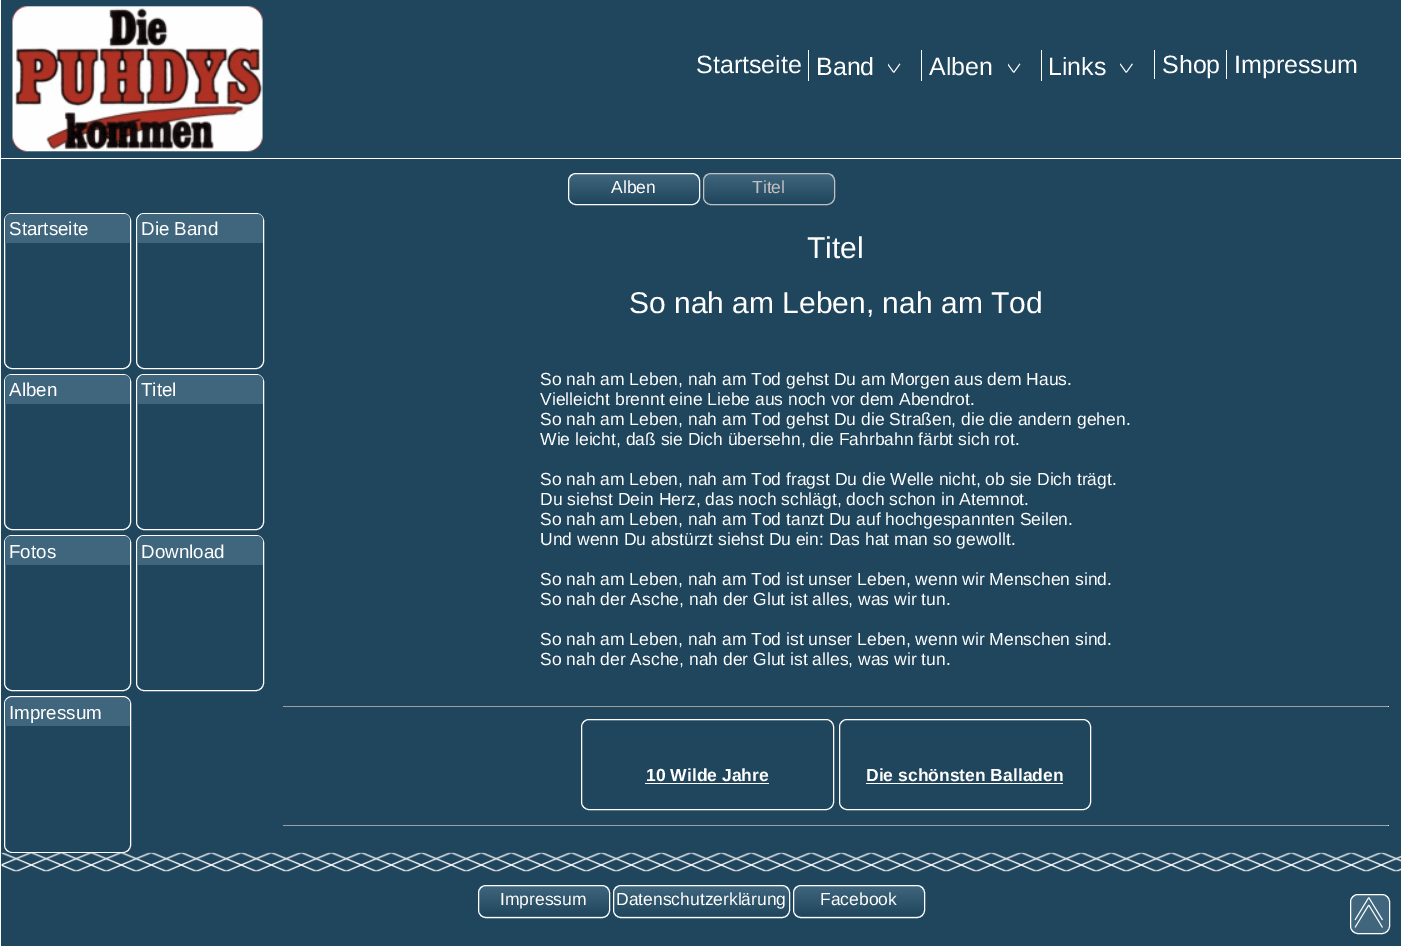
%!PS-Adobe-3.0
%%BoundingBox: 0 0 1402 946
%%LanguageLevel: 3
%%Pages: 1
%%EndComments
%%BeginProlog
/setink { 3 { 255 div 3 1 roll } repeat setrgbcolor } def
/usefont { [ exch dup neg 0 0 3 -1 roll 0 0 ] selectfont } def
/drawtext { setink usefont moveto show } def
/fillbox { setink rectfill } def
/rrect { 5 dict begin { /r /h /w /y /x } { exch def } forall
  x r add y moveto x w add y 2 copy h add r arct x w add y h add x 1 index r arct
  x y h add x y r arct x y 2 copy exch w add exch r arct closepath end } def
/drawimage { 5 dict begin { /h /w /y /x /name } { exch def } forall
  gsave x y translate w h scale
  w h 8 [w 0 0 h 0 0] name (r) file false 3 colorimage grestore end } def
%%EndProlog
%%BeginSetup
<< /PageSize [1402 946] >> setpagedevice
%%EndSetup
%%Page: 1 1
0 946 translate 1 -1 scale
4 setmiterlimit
0 0 1402 946 32 70 93 fillbox
1401 0 1 946 255 255 255 fillbox
0 0 1 946 255 255 255 fillbox
1 158 1400 1 255 255 255 fillbox
(assets/img1.rgb) 12 6 251 146 drawimage
(Startseite) 696 73 /LiberationSans-Regular 25 255 255 255 drawtext
808 50 1 31 255 255 255 fillbox
(Band) 816 75 /LiberationSans-Regular 25 255 255 255 drawtext
(assets/img2.rgb) 888 63 13 10 drawimage
921 50 1 31 255 255 255 fillbox
(Alben) 929 75 /LiberationSans-Regular 25 255 255 255 drawtext
(assets/img2.rgb) 1008 63 13 10 drawimage
1041 50 1 31 255 255 255 fillbox
(Links) 1048 75 /LiberationSans-Regular 25 255 255 255 drawtext
(assets/img3.rgb) 1120 63 13 10 drawimage
1154 50 1 29 255 255 255 fillbox
(Shop) 1162 73 /LiberationSans-Regular 25 255 255 255 drawtext
1226 50 1 29 255 255 255 fillbox
(Impressum) 1234 73 /LiberationSans-Regular 25 255 255 255 drawtext
gsave
568 173 132 32 8 rrect clip newpath
gsave 568 174 moveto 700 174 lineto 700 204 lineto 568 204 lineto closepath clip newpath
<< /ShadingType 2 /ColorSpace /DeviceRGB /Coords [634 174 634 204] /Extend [true true] /Function << /FunctionType 2 /Domain [0 1] /C0 [0.251 0.4 0.49] /C1 [0.125 0.275 0.365] /N 1 >> >> shfill grestore
grestore
568.5 173.5 131 31 7.5 rrect stroke
(Alben) 611 193 /LiberationSans-Regular 17.5 255 255 255 drawtext
gsave
703 173 132 32 8 rrect clip newpath
gsave 703 174 moveto 835 174 lineto 835 204 lineto 703 204 lineto closepath clip newpath
<< /ShadingType 2 /ColorSpace /DeviceRGB /Coords [769 174 769 204] /Extend [true true] /Function << /FunctionType 2 /Domain [0 1] /C0 [0.251 0.4 0.49] /C1 [0.125 0.275 0.365] /N 1 >> >> shfill grestore
grestore
192 192 192 setink
703.5 173.5 131 31 7.5 rrect stroke
(Titel) 752 193 /LiberationSans-Regular 17.5 192 192 192 drawtext
255 255 255 setink
4.5 213.5 126 155 7.5 rrect stroke
64 102 125 setink
11 214 moveto 124 214 lineto 127.5 214 130 216.5 130 220 curveto 130 243 lineto 5 243 lineto 5 220 lineto 5 216.5 7.5 214 11 214 curveto closepath fill
(Startseite) 9 235 /LiberationSans-Regular 18.75 255 255 255 drawtext
136.5 213.5 127 155 7.5 rrect stroke
64 102 125 setink
144 214 moveto 257 214 lineto 260.5 214 263 216.5 263 220 curveto 263 243 lineto 138 243 lineto 138 220 lineto 138 216.5 140.5 214 144 214 curveto closepath fill
(Die Band) 141 235 /LiberationSans-Regular 18.75 255 255 255 drawtext
4.5 374.5 126 155 7.5 rrect stroke
64 102 125 setink
11 375 moveto 124 375 lineto 127.5 375 130 377.5 130 381 curveto 130 404 lineto 5 404 lineto 5 381 lineto 5 377.5 7.5 375 11 375 curveto closepath fill
(Alben) 9 396 /LiberationSans-Regular 18.75 255 255 255 drawtext
136.5 374.5 127 155 7.5 rrect stroke
64 102 125 setink
144 375 moveto 257 375 lineto 260.5 375 263 377.5 263 381 curveto 263 404 lineto 138 404 lineto 138 381 lineto 138 377.5 140.5 375 144 375 curveto closepath fill
(Titel) 141 396 /LiberationSans-Regular 18.75 255 255 255 drawtext
4.5 535.5 126 155 7.5 rrect stroke
64 102 125 setink
11 536 moveto 124 536 lineto 127.5 536 130 538.5 130 542 curveto 130 565 lineto 5 565 lineto 5 542 lineto 5 538.5 7.5 536 11 536 curveto closepath fill
(Fotos) 9 558 /LiberationSans-Regular 18.75 255 255 255 drawtext
136.5 535.5 127 155 7.5 rrect stroke
64 102 125 setink
144 536 moveto 257 536 lineto 260.5 536 263 538.5 263 542 curveto 263 565 lineto 138 565 lineto 138 542 lineto 138 538.5 140.5 536 144 536 curveto closepath fill
(Download) 141 558 /LiberationSans-Regular 18.75 255 255 255 drawtext
4.5 696.5 126 156 7.5 rrect stroke
64 102 125 setink
11 698 moveto 124 698 lineto 127.5 698 130 700.5 130 704 curveto 130 726 lineto 5 726 lineto 5 704 lineto 5 700.5 7.5 698 11 698 curveto closepath fill
(Impressum) 9 719 /LiberationSans-Regular 18.75 255 255 255 drawtext
(Titel) 807 258 /LiberationSans-Regular 30 255 255 255 drawtext
(So nah am Leben, nah am Tod) 629 313 /LiberationSans-Regular 30 255 255 255 drawtext
(So nah am Leben, nah am Tod gehst Du am Morgen aus dem Haus.) 540 385 /LiberationSans-Regular 17.5 255 255 255 drawtext
(Vielleicht brennt eine Liebe aus noch vor dem Abendrot.) 540 405 /LiberationSans-Regular 17.5 255 255 255 drawtext
(So nah am Leben, nah am Tod gehst Du die Straßen, die die andern gehen.) 540 425 /LiberationSans-Regular 17.5 255 255 255 drawtext
(Wie leicht, daß sie Dich übersehn, die Fahrbahn färbt sich rot.) 540 445 /LiberationSans-Regular 17.5 255 255 255 drawtext
(So nah am Leben, nah am Tod fragst Du die Welle nicht, ob sie Dich trägt.) 540 485 /LiberationSans-Regular 17.5 255 255 255 drawtext
(Du siehst Dein Herz, das noch schlägt, doch schon in Atemnot.) 540 505 /LiberationSans-Regular 17.5 255 255 255 drawtext
(So nah am Leben, nah am Tod tanzt Du auf hochgespannten Seilen.) 540 525 /LiberationSans-Regular 17.5 255 255 255 drawtext
(Und wenn Du abstürzt siehst Du ein: Das hat man so gewollt.) 540 545 /LiberationSans-Regular 17.5 255 255 255 drawtext
(So nah am Leben, nah am Tod ist unser Leben, wenn wir Menschen sind.) 540 585 /LiberationSans-Regular 17.5 255 255 255 drawtext
(So nah der Asche, nah der Glut ist alles, was wir tun.) 540 605 /LiberationSans-Regular 17.5 255 255 255 drawtext
(So nah am Leben, nah am Tod ist unser Leben, wenn wir Menschen sind.) 540 645 /LiberationSans-Regular 17.5 255 255 255 drawtext
(So nah der Asche, nah der Glut ist alles, was wir tun.) 540 665 /LiberationSans-Regular 17.5 255 255 255 drawtext
283 706 1106 1 159 159 159 fillbox
1388 706 1 1 238 238 238 fillbox
255 255 255 setink
581.5 719.5 252 90 7.5 rrect stroke
(10 Wilde Jahre) 646 781 /LiberationSans-Bold 17.5 255 255 255 drawtext
645 783 124 1 255 255 255 fillbox
839.5 719.5 251 90 7.5 rrect stroke
(Die schönsten Balladen) 866 781 /LiberationSans-Bold 17.5 255 255 255 drawtext
866 783 197 1 255 255 255 fillbox
283 825 1106 1 159 159 159 fillbox
1388 825 1 1 238 238 238 fillbox
64 102 125 setink
1350.5 894.5 39 39 7.5 rrect gsave fill grestore
255 255 255 setink
stroke
(assets/img4.rgb) 1354 897 29 31 drawimage
(assets/img5.rgb) 1 852 1400 20 drawimage
gsave
478 885 132 33 8 rrect clip newpath
gsave 478 886 moveto 610 886 lineto 610 916 lineto 478 916 lineto closepath clip newpath
<< /ShadingType 2 /ColorSpace /DeviceRGB /Coords [544 886 544 916] /Extend [true true] /Function << /FunctionType 2 /Domain [0 1] /C0 [0.251 0.4 0.49] /C1 [0.125 0.275 0.365] /N 1 >> >> shfill grestore
gsave 478 916 moveto 610 916 lineto 610 918 lineto 478 918 lineto closepath clip newpath
<< /ShadingType 2 /ColorSpace /DeviceRGB /Coords [544 916 544 946] /Extend [true true] /Function << /FunctionType 2 /Domain [0 1] /C0 [0.251 0.4 0.49] /C1 [0.125 0.275 0.365] /N 1 >> >> shfill grestore
grestore
478.5 885.5 131 32 7.5 rrect stroke
(Impressum) 500 905 /LiberationSans-Regular 17.5 255 255 255 drawtext
gsave
613 885 177 33 8 rrect clip newpath
gsave 613 886 moveto 790 886 lineto 790 916 lineto 613 916 lineto closepath clip newpath
<< /ShadingType 2 /ColorSpace /DeviceRGB /Coords [701 886 701 916] /Extend [true true] /Function << /FunctionType 2 /Domain [0 1] /C0 [0.251 0.4 0.49] /C1 [0.125 0.275 0.365] /N 1 >> >> shfill grestore
gsave 613 916 moveto 790 916 lineto 790 918 lineto 613 918 lineto closepath clip newpath
<< /ShadingType 2 /ColorSpace /DeviceRGB /Coords [701 916 701 946] /Extend [true true] /Function << /FunctionType 2 /Domain [0 1] /C0 [0.251 0.4 0.49] /C1 [0.125 0.275 0.365] /N 1 >> >> shfill grestore
grestore
613.5 885.5 176 32 7.5 rrect stroke
(Datenschutzerklärung) 616 905 /LiberationSans-Regular 17.5 255 255 255 drawtext
gsave
793 885 132 33 8 rrect clip newpath
gsave 793 886 moveto 925 886 lineto 925 916 lineto 793 916 lineto closepath clip newpath
<< /ShadingType 2 /ColorSpace /DeviceRGB /Coords [859 886 859 916] /Extend [true true] /Function << /FunctionType 2 /Domain [0 1] /C0 [0.251 0.4 0.49] /C1 [0.125 0.275 0.365] /N 1 >> >> shfill grestore
gsave 793 916 moveto 925 916 lineto 925 918 lineto 793 918 lineto closepath clip newpath
<< /ShadingType 2 /ColorSpace /DeviceRGB /Coords [859 916 859 946] /Extend [true true] /Function << /FunctionType 2 /Domain [0 1] /C0 [0.251 0.4 0.49] /C1 [0.125 0.275 0.365] /N 1 >> >> shfill grestore
grestore
793.5 885.5 131 32 7.5 rrect stroke
(Facebook) 820 905 /LiberationSans-Regular 17.5 255 255 255 drawtext
showpage
%%EOF
